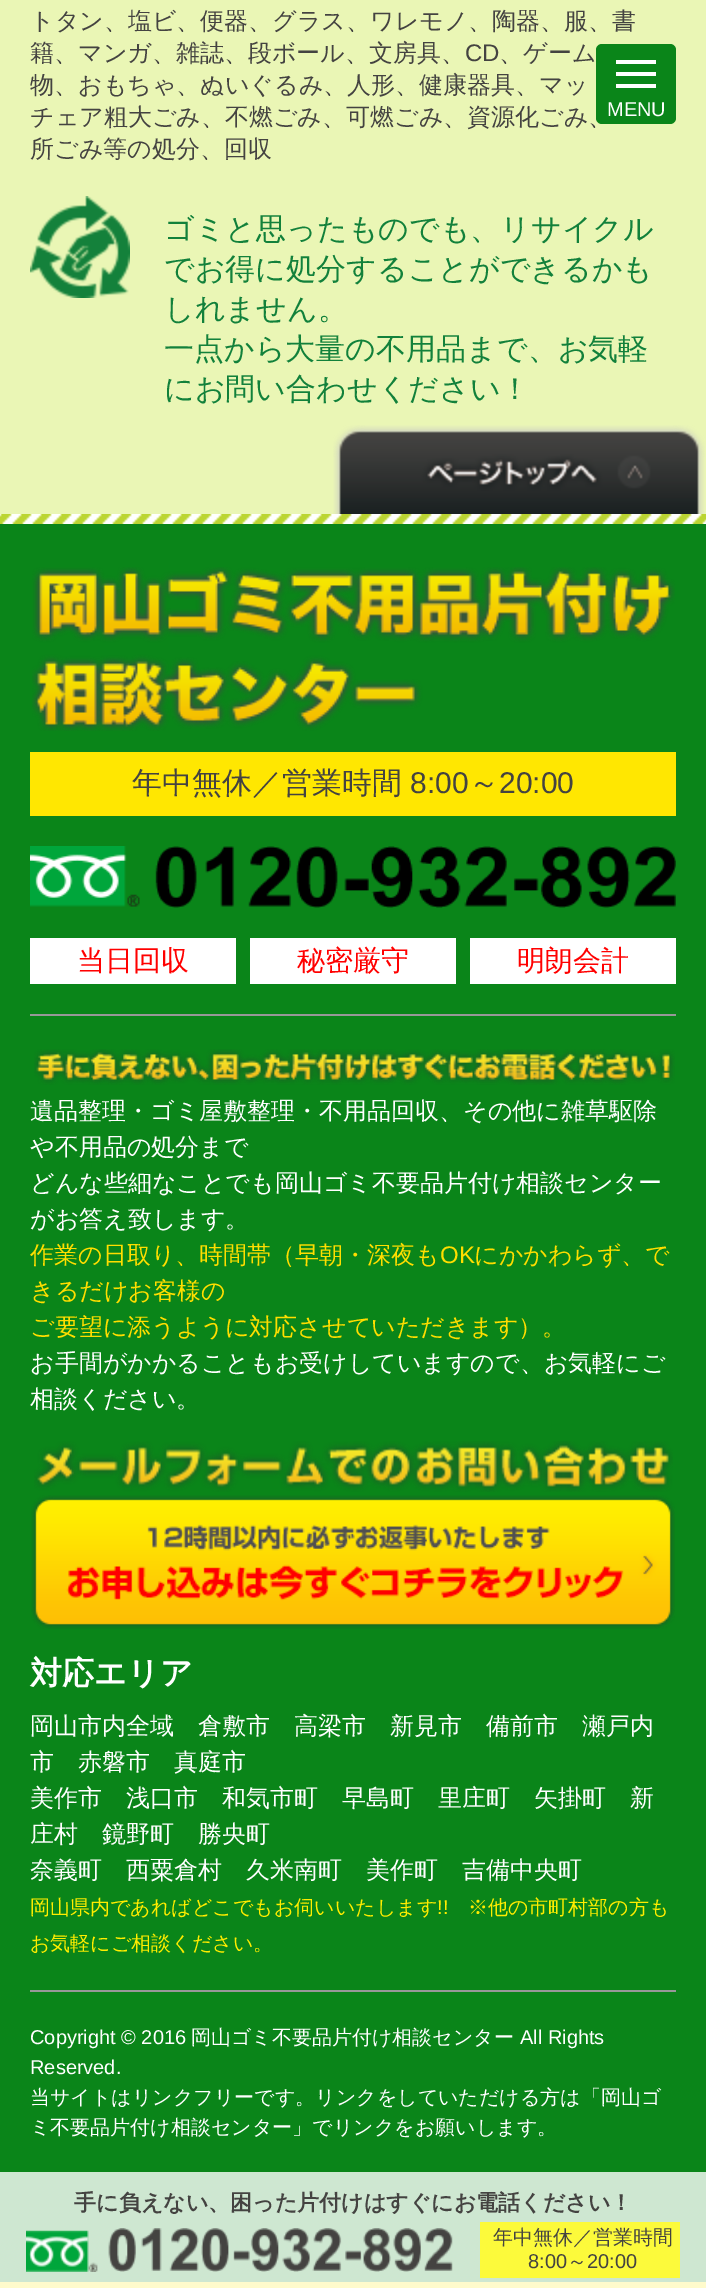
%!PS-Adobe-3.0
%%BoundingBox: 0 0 706 2288
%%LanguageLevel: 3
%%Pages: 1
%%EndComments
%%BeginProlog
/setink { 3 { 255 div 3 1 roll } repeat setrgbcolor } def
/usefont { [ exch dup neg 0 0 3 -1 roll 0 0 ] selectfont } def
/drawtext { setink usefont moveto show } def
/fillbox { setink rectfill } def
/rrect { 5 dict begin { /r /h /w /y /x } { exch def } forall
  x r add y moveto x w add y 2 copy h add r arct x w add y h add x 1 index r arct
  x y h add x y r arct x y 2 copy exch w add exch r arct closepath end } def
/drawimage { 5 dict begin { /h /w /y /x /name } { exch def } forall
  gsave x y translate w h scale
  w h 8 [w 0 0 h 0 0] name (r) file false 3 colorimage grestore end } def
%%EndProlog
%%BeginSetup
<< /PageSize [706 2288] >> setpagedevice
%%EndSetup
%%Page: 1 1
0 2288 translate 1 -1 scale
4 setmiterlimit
0 0 706 2288 10 133 25 fillbox
0 0 706 514 234 246 181 fillbox
(assets/img1.rgb) 0 514 706 10 drawimage
(トタン、塩ビ、便器、グラス、ワレモノ、陶器、服、書) 30 29 /WenQuanYiZenHei-Medium 24 68 67 65 drawtext
(籍、マンガ、雑誌、段ボール、文房具、) 30 61 /WenQuanYiZenHei-Medium 24 68 67 65 drawtext
(CD) 465 61 /LiberationSans-Regular 24 68 67 65 drawtext
(、ゲーム) 499 61 /WenQuanYiZenHei-Medium 24 68 67 65 drawtext
(物、おもちゃ、ぬいぐるみ、人形、健康器具、マッ) 30 93 /WenQuanYiZenHei-Medium 24 68 67 65 drawtext
(チェア粗大ごみ、不燃ごみ、可燃ごみ、資源化ごみ、) 30 125 /WenQuanYiZenHei-Medium 24 68 67 65 drawtext
(所ごみ等の処分、回収) 30 157 /WenQuanYiZenHei-Medium 24 68 67 65 drawtext
(assets/img2.rgb) 30 196 100 102 drawimage
(ゴミと思ったものでも、リサイクル) 164 239 /WenQuanYiZenHei-Medium 30 18 129 59 drawtext
(でお得に処分することができるかも) 164 279 /WenQuanYiZenHei-Medium 30 18 129 59 drawtext
(しれません。) 164 319 /WenQuanYiZenHei-Medium 30 18 129 59 drawtext
(一点から大量の不用品まで、お気軽) 164 359 /WenQuanYiZenHei-Medium 30 18 129 59 drawtext
(にお問い合わせください！) 164 399 /WenQuanYiZenHei-Medium 30 18 129 59 drawtext
(assets/img3.rgb) 333 425 372 89 drawimage
0 2172 706 110 206 231 209 fillbox
0 2282 706 6 255 251 204 fillbox
(assets/img4.rgb) 32 567 643 164 drawimage
30 752 646 64 255 231 1 fillbox
(年中無休／営業時間) 132 793 /WenQuanYiZenHei-Medium 30 68 67 65 drawtext
(8:00) 410 793 /LiberationSans-Regular 30 68 67 65 drawtext
(～) 469 793 /WenQuanYiZenHei-Medium 30 68 67 65 drawtext
(20:00) 499 793 /LiberationSans-Regular 30 68 67 65 drawtext
(assets/img5.rgb) 30 846 646 62 drawimage
30 938 206 46 255 255 255 fillbox
(当日回収) 77 970 /WenQuanYiZenHei-Medium 28 255 0 0 drawtext
250 938 206 46 255 255 255 fillbox
(秘密厳守) 297 970 /WenQuanYiZenHei-Medium 28 255 0 0 drawtext
470 938 206 46 255 255 255 fillbox
(明朗会計) 517 970 /WenQuanYiZenHei-Medium 28 255 0 0 drawtext
30 1014 646 2 152 152 152 fillbox
30 1990 646 2 152 152 152 fillbox
(assets/img6.rgb) 34 1049 641 36 drawimage
(遺品整理・ゴミ屋敷整理・不用品回収、その他に雑草駆除) 30 1119 /WenQuanYiZenHei-Medium 24 255 255 255 drawtext
(や不用品の処分まで) 30 1155 /WenQuanYiZenHei-Medium 24 255 255 255 drawtext
(どんな些細なことでも岡山ゴミ不要品片付け相談センター) 30 1191 /WenQuanYiZenHei-Medium 24 255 255 255 drawtext
(がお答え致します。) 30 1227 /WenQuanYiZenHei-Medium 24 255 255 255 drawtext
(作業の日取り、時間帯（早朝・深夜も) 30 1263 /WenQuanYiZenHei-Medium 24 255 222 0 drawtext
(OK) 440 1263 /LiberationSans-Regular 24 255 222 0 drawtext
(にかかわらず、で) 474 1263 /WenQuanYiZenHei-Medium 24 255 222 0 drawtext
(きるだけお客様の) 30 1299 /WenQuanYiZenHei-Medium 24 255 222 0 drawtext
(ご要望に添うように対応させていただきます）。) 30 1335 /WenQuanYiZenHei-Medium 24 255 222 0 drawtext
(お手間がかかることもお受けしていますので、お気軽にご) 30 1371 /WenQuanYiZenHei-Medium 24 255 255 255 drawtext
(相談ください。) 30 1407 /WenQuanYiZenHei-Medium 24 255 255 255 drawtext
(assets/img7.rgb) 34 1441 639 51 drawimage
(assets/img8.rgb) 31 1495 644 134 drawimage
(対応エリア) 30 1684 /WenQuanYiZenHei-Bold 32 255 255 255 drawtext
(岡山市内全域　倉敷市　高梁市　新見市　備前市　瀬戸内) 30 1734 /WenQuanYiZenHei-Medium 24 255 255 255 drawtext
(市　赤磐市　真庭市) 30 1770 /WenQuanYiZenHei-Medium 24 255 255 255 drawtext
(美作市　浅口市　和気市町　早島町　里庄町　矢掛町　新) 30 1806 /WenQuanYiZenHei-Medium 24 255 255 255 drawtext
(庄村　鏡野町　勝央町) 30 1842 /WenQuanYiZenHei-Medium 24 255 255 255 drawtext
(奈義町　西粟倉村　久米南町　美作町　吉備中央町) 30 1878 /WenQuanYiZenHei-Medium 24 255 255 255 drawtext
(岡山県内であればどこでもお伺いいたします) 30 1914 /WenQuanYiZenHei-Medium 20 255 237 0 drawtext
(!!) 437 1914 /LiberationSans-Regular 20 255 237 0 drawtext
(※他の市町村部の方も) 468 1914 /WenQuanYiZenHei-Medium 20 255 237 0 drawtext
(お気軽にご相談ください。) 30 1950 /WenQuanYiZenHei-Medium 20 255 237 0 drawtext
(Copyright © 2016) 30 2044 /LiberationSans-Regular 20 255 255 255 drawtext
(岡山ゴミ不要品片付け相談センター) 191 2044 /WenQuanYiZenHei-Medium 20 255 255 255 drawtext
(All Rights) 520 2044 /LiberationSans-Regular 20 255 255 255 drawtext
(Reserved.) 30 2074 /LiberationSans-Regular 20 255 255 255 drawtext
(当サイトはリンクフリーです。リンクをしていただける方は「岡山ゴ) 30 2104 /WenQuanYiZenHei-Medium 20 255 255 255 drawtext
(ミ不要品片付け相談センター」でリンクをお願いします。) 30 2134 /WenQuanYiZenHei-Medium 20 255 255 255 drawtext
10 133 25 setink
596 44 80 80 6 rrect fill
616 60 40 4 255 255 255 fillbox
616 72 40 4 255 255 255 fillbox
616 84 40 4 255 255 255 fillbox
(MENU) 607 116 /LiberationSans-Regular 20 255 255 255 drawtext
(手に負えない、困った片付けはすぐにお電話ください！) 74 2210 /WenQuanYiZenHei-Bold 22 68 67 65 drawtext
(assets/img9.rgb) 26 2228 427 44 drawimage
480 2222 200 56 252 250 59 fillbox
(年中無休／営業時間) 493 2244 /WenQuanYiZenHei-Medium 20 68 67 65 drawtext
(8:00) 528 2268 /LiberationSans-Regular 20 68 67 65 drawtext
(～) 567 2268 /WenQuanYiZenHei-Medium 20 68 67 65 drawtext
(20:00) 587 2268 /LiberationSans-Regular 20 68 67 65 drawtext
showpage
%%EOF
